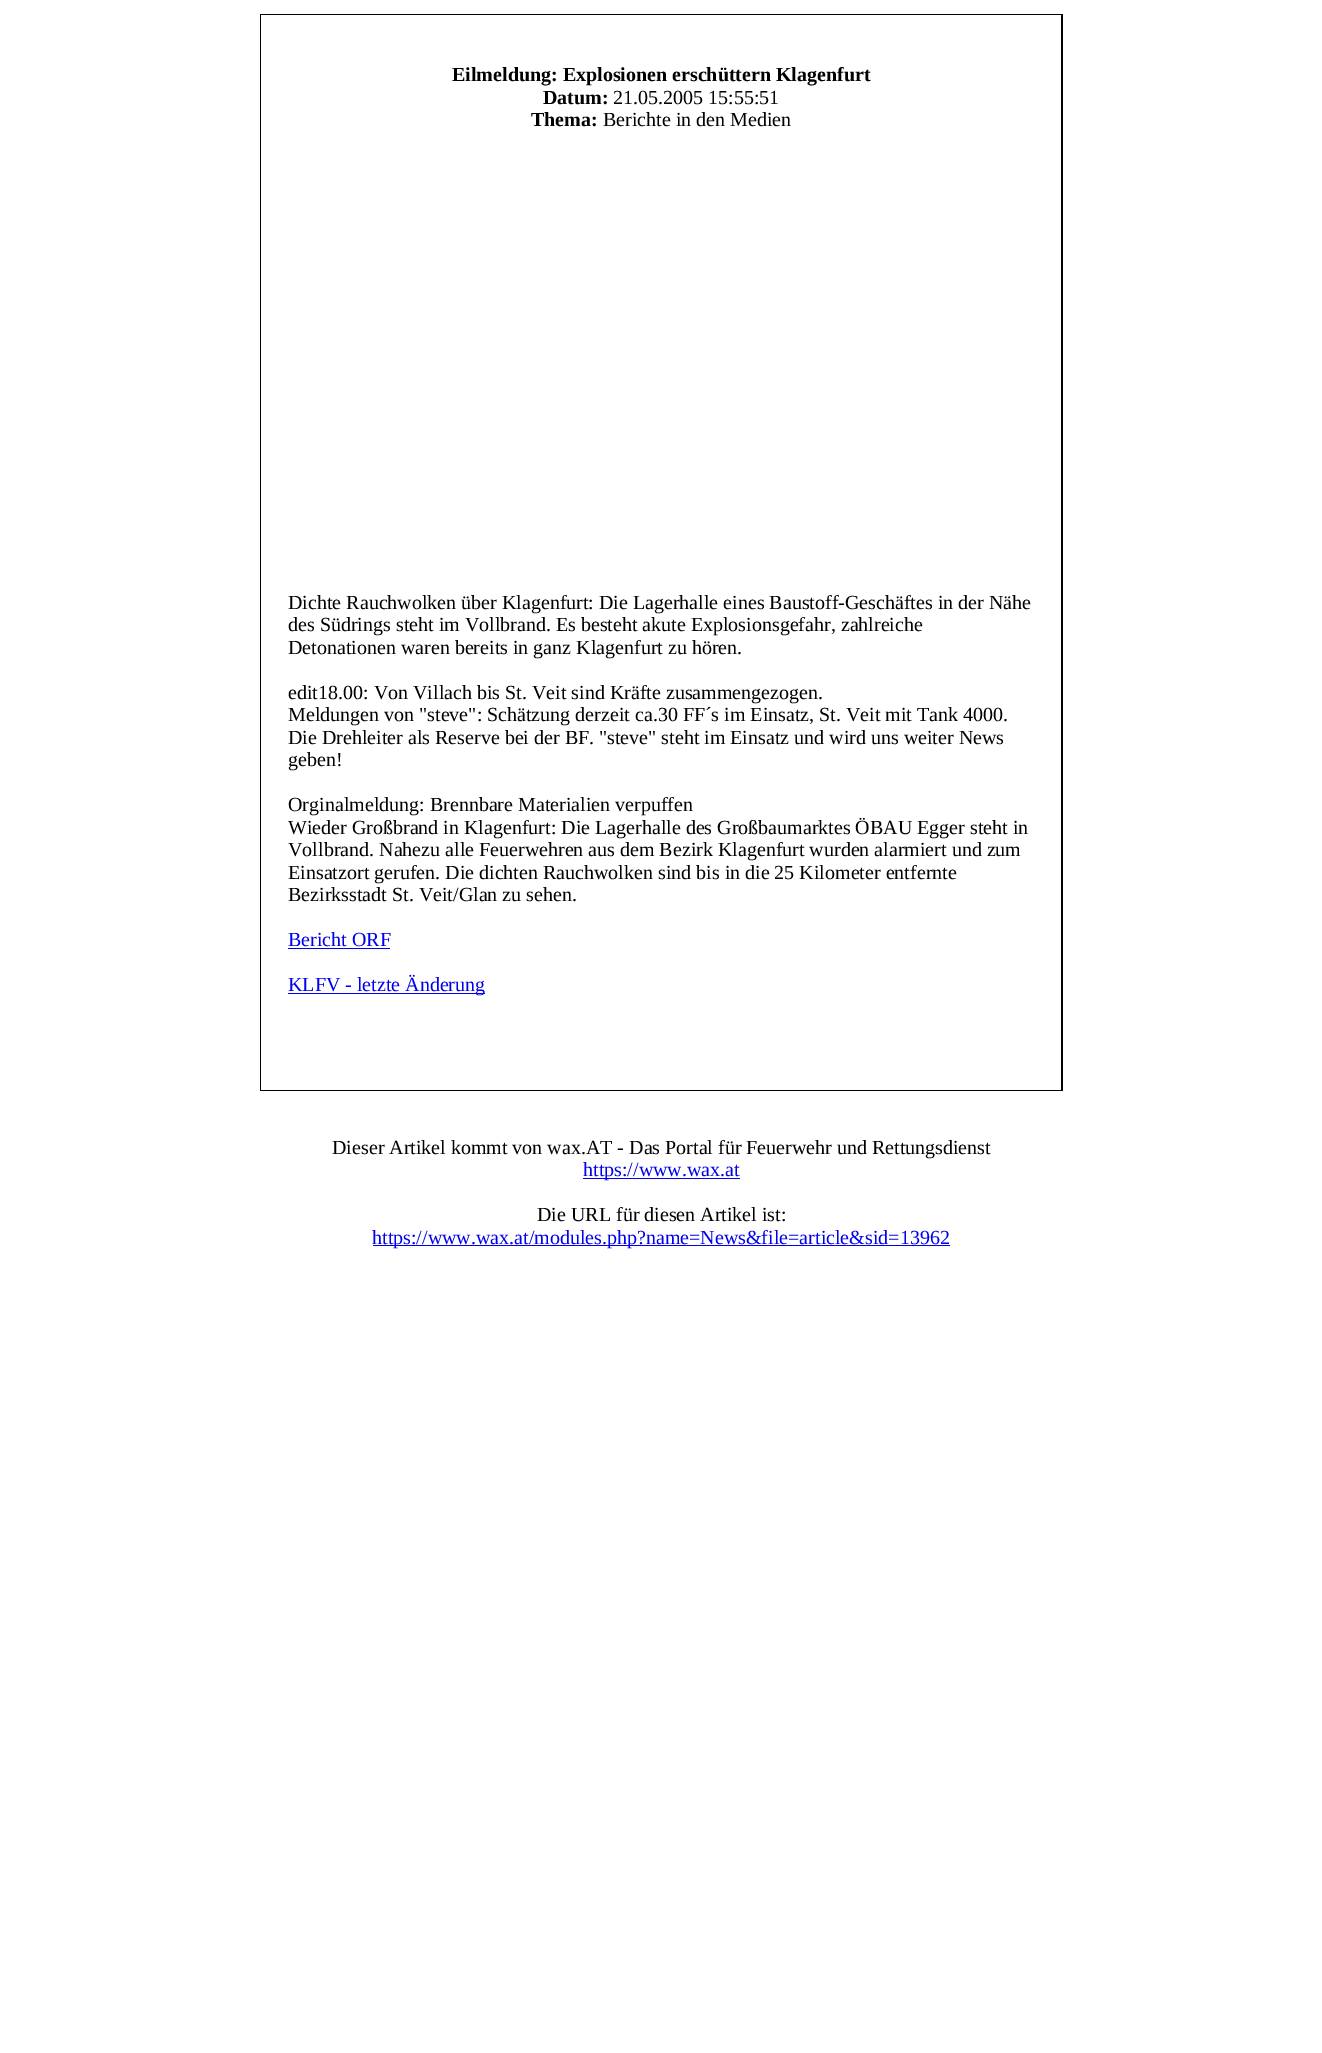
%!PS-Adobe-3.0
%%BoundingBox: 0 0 1322 2053
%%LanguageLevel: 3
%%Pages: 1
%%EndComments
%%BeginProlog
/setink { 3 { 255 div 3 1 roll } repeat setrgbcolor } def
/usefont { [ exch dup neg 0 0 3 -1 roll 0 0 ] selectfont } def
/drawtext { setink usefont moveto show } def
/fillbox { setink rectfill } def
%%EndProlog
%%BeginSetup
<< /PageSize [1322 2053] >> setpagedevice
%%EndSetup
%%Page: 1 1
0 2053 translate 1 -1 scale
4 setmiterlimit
0 0 1322 2053 255 255 255 fillbox
260 14 803 1077 0 0 0 fillbox
261 15 800 1075 255 255 255 fillbox
(Eilmeldung: Explosionen erschüttern Klagenfurt) 452 81 /LiberationSerif-Bold 20 0 0 0 drawtext
(Datum:) 543 104 /LiberationSerif-Bold 20 0 0 0 drawtext
(21.05.2005 15:55:51) 613 104 /LiberationSerif-Regular 20 0 0 0 drawtext
(Thema:) 531 126 /LiberationSerif-Bold 20 0 0 0 drawtext
(Berichte in den Medien) 603 126 /LiberationSerif-Regular 20 0 0 0 drawtext
(Dichte Rauchwolken über Klagenfurt: Die Lagerhalle eines Baustoff-Geschäftes in der Nähe) 288 609 /LiberationSerif-Regular 20 0 0 0 drawtext
(des Südrings steht im Vollbrand. Es besteht akute Explosionsgefahr, zahlreiche) 288 631 /LiberationSerif-Regular 20 0 0 0 drawtext
(Detonationen waren bereits in ganz Klagenfurt zu hören.) 288 654 /LiberationSerif-Regular 20 0 0 0 drawtext
(edit18.00: Von Villach bis St. Veit sind Kräfte zusammengezogen.) 288 699 /LiberationSerif-Regular 20 0 0 0 drawtext
(Meldungen von "steve": Schätzung derzeit ca.30 FF´s im Einsatz, St. Veit mit Tank 4000.) 288 721 /LiberationSerif-Regular 20 0 0 0 drawtext
(Die Drehleiter als Reserve bei der BF. "steve" steht im Einsatz und wird uns weiter News) 288 744 /LiberationSerif-Regular 20 0 0 0 drawtext
(geben!) 288 766 /LiberationSerif-Regular 20 0 0 0 drawtext
(Orginalmeldung: Brennbare Materialien verpuffen) 288 811 /LiberationSerif-Regular 20 0 0 0 drawtext
(Wieder Großbrand in Klagenfurt: Die Lagerhalle des Großbaumarktes ÖBAU Egger steht in) 288 834 /LiberationSerif-Regular 20 0 0 0 drawtext
(Vollbrand. Nahezu alle Feuerwehren aus dem Bezirk Klagenfurt wurden alarmiert und zum) 288 856 /LiberationSerif-Regular 20 0 0 0 drawtext
(Einsatzort gerufen. Die dichten Rauchwolken sind bis in die 25 Kilometer entfernte) 288 879 /LiberationSerif-Regular 20 0 0 0 drawtext
(Bezirksstadt St. Veit/Glan zu sehen.) 288 901 /LiberationSerif-Regular 20 0 0 0 drawtext
(Bericht ORF) 288 946 /LiberationSerif-Regular 20 0 0 238 drawtext
288 948 102 1 0 0 238 fillbox
288 993 197 1 0 0 238 fillbox
(KLFV - letzte Änderung) 288 991 /LiberationSerif-Regular 20 0 0 238 drawtext
(Dieser Artikel kommt von wax.AT - Das Portal für Feuerwehr und Rettungsdienst) 332 1154 /LiberationSerif-Regular 20 0 0 0 drawtext
583 1178 157 1 0 0 238 fillbox
(https://www.wax.at) 583 1176 /LiberationSerif-Regular 20 0 0 238 drawtext
(Die URL für diesen Artikel ist:) 537 1221 /LiberationSerif-Regular 20 0 0 0 drawtext
373 1245 577 1 0 0 238 fillbox
(https://www.wax.at/modules.php?name=News&file=article&sid=13962) 372 1244 /LiberationSerif-Regular 20 0 0 238 drawtext
showpage
%%EOF
